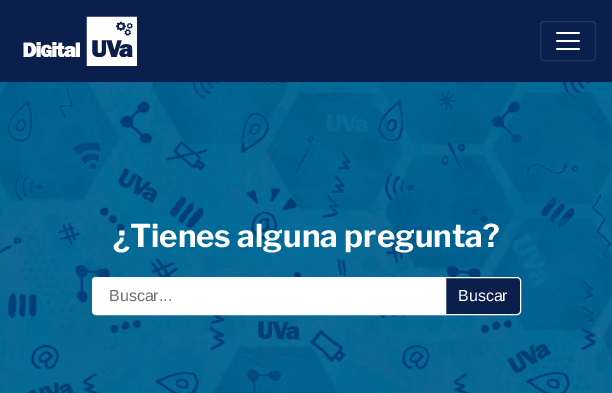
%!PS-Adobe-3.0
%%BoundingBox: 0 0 612 393
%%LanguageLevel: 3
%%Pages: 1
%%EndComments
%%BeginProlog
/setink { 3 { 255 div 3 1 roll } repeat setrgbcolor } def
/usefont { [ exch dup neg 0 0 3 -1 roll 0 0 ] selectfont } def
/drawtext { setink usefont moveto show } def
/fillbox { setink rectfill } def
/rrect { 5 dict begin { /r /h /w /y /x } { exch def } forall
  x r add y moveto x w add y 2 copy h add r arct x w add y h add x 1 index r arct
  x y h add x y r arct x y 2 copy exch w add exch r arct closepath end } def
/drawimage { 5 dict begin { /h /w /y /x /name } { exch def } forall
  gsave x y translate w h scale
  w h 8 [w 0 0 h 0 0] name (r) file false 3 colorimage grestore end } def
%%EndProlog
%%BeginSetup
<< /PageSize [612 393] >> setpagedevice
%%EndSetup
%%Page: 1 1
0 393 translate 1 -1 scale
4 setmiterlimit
0 0 612 393 255 255 255 fillbox
0 0 612 82 11 31 76 fillbox
(assets/img1.rgb) 23 16 114 50 drawimage
35 53 94 setink
540.5 21.5 55 39 3.5 rrect stroke
(assets/img2.rgb) 556 32 24 18 drawimage
(assets/img3.rgb) 0 82 612 311 drawimage
(¿Tienes alguna pregunta?) 113 247 /LibreFranklin-Bold 31.25 255 255 255 drawtext
96 277.5 moveto 445.5 277.5 lineto 445.5 314.5 lineto 96 314.5 lineto 94 314.5 92.5 313 92.5 311 curveto 92.5 281 lineto 92.5 279 94 277.5 96 277.5 curveto closepath gsave fill grestore
stroke
(Buscar...) 109 301 /LiberationSans-Regular 16 112 112 112 drawtext
11 31 76 setink
445.5 277.5 moveto 517 277.5 lineto 519 277.5 520.5 279 520.5 281 curveto 520.5 311 lineto 520.5 313 519 314.5 517 314.5 curveto 445.5 314.5 lineto closepath gsave fill grestore
255 255 255 setink
stroke
(Buscar) 458 301 /LiberationSans-Regular 16 255 255 255 drawtext
showpage
%%EOF
